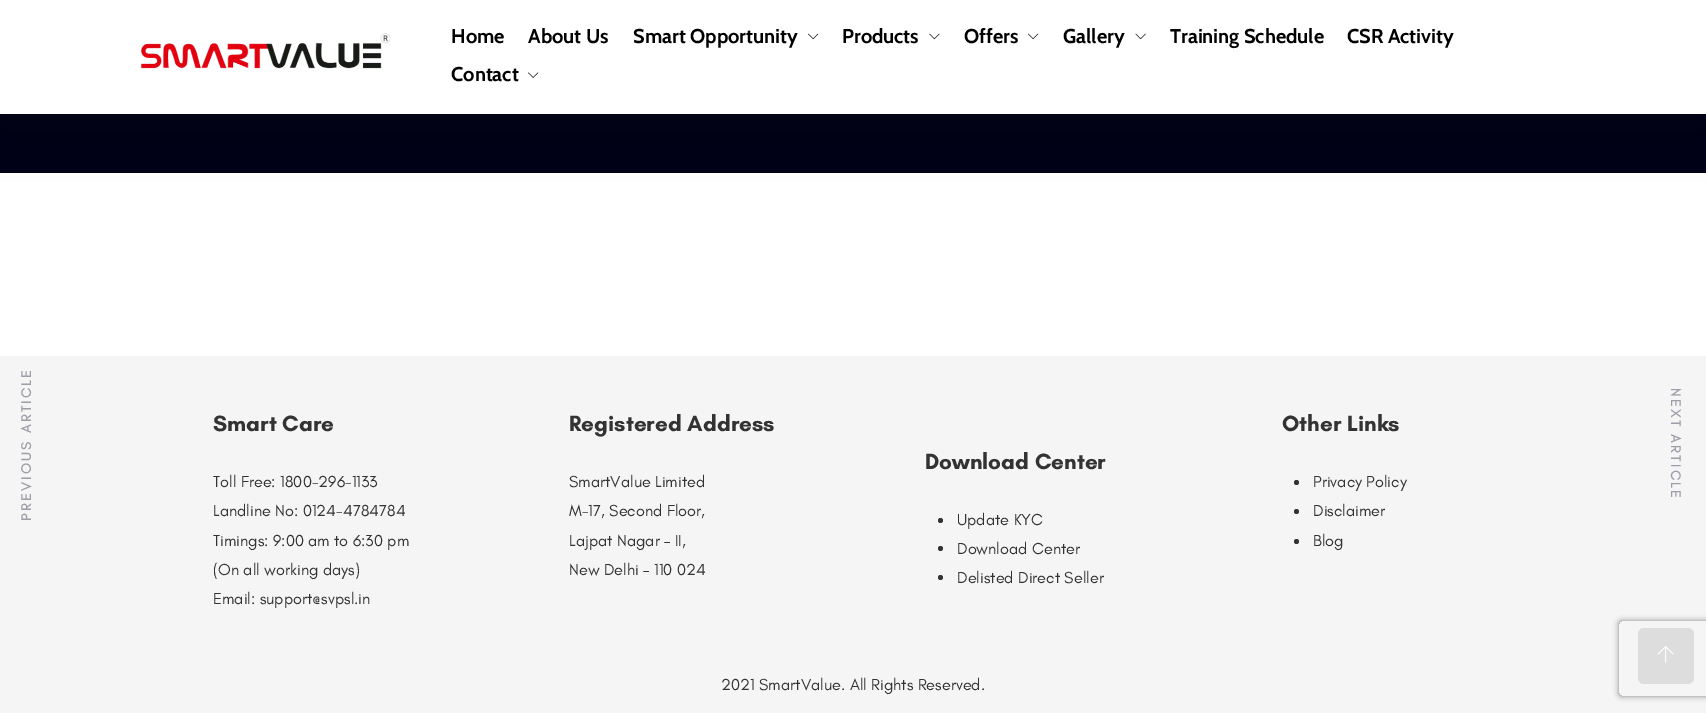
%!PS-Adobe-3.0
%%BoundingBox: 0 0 1706 713
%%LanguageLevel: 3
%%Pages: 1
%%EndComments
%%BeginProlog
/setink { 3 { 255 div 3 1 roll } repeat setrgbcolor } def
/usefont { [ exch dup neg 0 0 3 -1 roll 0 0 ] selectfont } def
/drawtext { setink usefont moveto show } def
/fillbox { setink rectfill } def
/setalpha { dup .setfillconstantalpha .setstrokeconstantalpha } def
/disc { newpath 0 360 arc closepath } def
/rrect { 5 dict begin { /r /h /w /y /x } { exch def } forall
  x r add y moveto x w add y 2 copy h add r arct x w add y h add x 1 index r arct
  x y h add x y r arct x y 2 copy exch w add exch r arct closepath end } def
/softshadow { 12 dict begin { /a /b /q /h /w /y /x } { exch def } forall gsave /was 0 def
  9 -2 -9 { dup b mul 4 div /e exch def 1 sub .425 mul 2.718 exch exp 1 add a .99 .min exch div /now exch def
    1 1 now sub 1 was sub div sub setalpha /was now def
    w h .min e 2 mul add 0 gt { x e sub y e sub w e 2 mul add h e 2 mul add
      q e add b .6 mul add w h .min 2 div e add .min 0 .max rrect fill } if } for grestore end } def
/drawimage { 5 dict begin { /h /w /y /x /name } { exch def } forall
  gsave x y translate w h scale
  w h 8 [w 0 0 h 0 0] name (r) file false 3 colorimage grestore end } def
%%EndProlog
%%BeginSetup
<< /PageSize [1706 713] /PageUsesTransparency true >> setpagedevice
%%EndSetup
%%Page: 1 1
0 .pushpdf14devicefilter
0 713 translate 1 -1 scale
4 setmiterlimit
0 0 1706 713 255 255 255 fillbox
0 114 1706 59 0 0 22 fillbox
47 47 47 setink
0 13 1706 113 0 25 0.1 softshadow
0 0 1706 114 255 255 255 fillbox
(assets/img1.rgb) 141 33 250 36 drawimage
(Home) 451 43 /Cabin-Bold 20 0 0 0 drawtext
(About Us) 528 43 /Cabin-Bold 20 0 0 0 drawtext
(Smart Opportunity) 633 43 /Cabin-Bold 20 0 0 0 drawtext
(assets/img2.rgb) 808 33 11 7 drawimage
(Products) 842 43 /Cabin-Bold 20 0 0 0 drawtext
(assets/img3.rgb) 929 33 11 7 drawimage
(Offers) 964 43 /Cabin-Bold 20 0 0 0 drawtext
(assets/img2.rgb) 1028 33 11 7 drawimage
(Gallery) 1063 43 /Cabin-Bold 20 0 0 0 drawtext
(assets/img4.rgb) 1135 33 11 7 drawimage
(Training Schedule) 1170 43 /Cabin-Bold 20 0 0 0 drawtext
(CSR Activity) 1347 43 /Cabin-Bold 20 0 0 0 drawtext
(Contact) 451 81 /Cabin-Bold 20 0 0 0 drawtext
(assets/img5.rgb) 528 72 11 6 drawimage
0 356 1706 357 245 245 245 fillbox
/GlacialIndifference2-Bold 13.75 usefont
157 158 167 setink
gsave 31 521 translate -90 rotate 0 0 moveto 2.5 0 (PREVIOUS ARTICLE) ashow grestore
gsave 1671 388 translate 90 rotate 0 0 moveto 2.5 0 (NEXT ARTICLE) ashow grestore
(Smart Care) 213 431 /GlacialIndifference-Bold 22.5 51 51 51 drawtext
(Toll Free: 1800-296-1133) 213 487 /GlacialIndifference-Regular 16.25 51 51 51 drawtext
(Landline No: 0124-4784784) 213 516 /GlacialIndifference-Regular 16.25 51 51 51 drawtext
(Timings: 9:00 am to 6:30 pm) 213 546 /GlacialIndifference-Regular 16.25 51 51 51 drawtext
(\(On all working days\)) 213 575 /GlacialIndifference-Regular 16.25 51 51 51 drawtext
(Email: support@svpsl.in) 213 604 /GlacialIndifference-Regular 16.25 51 51 51 drawtext
(Registered Address) 569 431 /GlacialIndifference-Bold 22.5 51 51 51 drawtext
(SmartValue Limited) 569 487 /GlacialIndifference-Regular 16.25 51 51 51 drawtext
(M-17, Second Floor,) 569 516 /GlacialIndifference-Regular 16.25 51 51 51 drawtext
(Lajpat Nagar – II,) 569 546 /GlacialIndifference-Regular 16.25 51 51 51 drawtext
(New Delhi – 110 024) 569 575 /GlacialIndifference-Regular 16.25 51 51 51 drawtext
(Download Center) 925 469 /GlacialIndifference-Bold 22.5 51 51 51 drawtext
940.5 520.5 2.5 disc fill
(Update KYC) 957 525 /GlacialIndifference-Regular 16.25 51 51 51 drawtext
940.5 548.5 2.5 disc fill
(Download Center) 957 554 /GlacialIndifference-Regular 16.25 51 51 51 drawtext
940.5 577.5 2.5 disc fill
(Delisted Direct Seller) 957 583 /GlacialIndifference-Regular 16.25 51 51 51 drawtext
(Other Links) 1282 431 /GlacialIndifference-Bold 22.5 51 51 51 drawtext
1296.5 482.5 2.5 disc fill
(Privacy Policy) 1313 487 /GlacialIndifference-Regular 16.25 51 51 51 drawtext
1296.5 511.5 2.5 disc fill
(Disclaimer) 1313 516 /GlacialIndifference-Regular 16.25 51 51 51 drawtext
1296.5 541.5 2.5 disc fill
(Blog) 1313 546 /GlacialIndifference-Regular 16.25 51 51 51 drawtext
(2021 SmartValue. All Rights Reserved.) 721 690 /GlacialIndifference-Regular 16.25 51 51 51 drawtext
gsave
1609 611 moveto 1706 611 lineto 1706 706 lineto 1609 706 lineto closepath 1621.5 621 moveto 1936.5 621 lineto 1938 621 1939 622 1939 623.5 curveto 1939 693.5 lineto 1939 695 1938 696 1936.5 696 curveto 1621.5 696 lineto 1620 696 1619 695 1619 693.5 curveto 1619 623.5 lineto 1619 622 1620 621 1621.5 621 curveto closepath eoclip newpath
128 128 128 setink
1619 621 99 75 2.5 3 1 softshadow
grestore
221 221 221 setink
1638 628 56 56 6 rrect fill
(assets/img6.rgb) 1657 646 17 17 drawimage
.poppdf14devicefilter showpage
%%EOF
